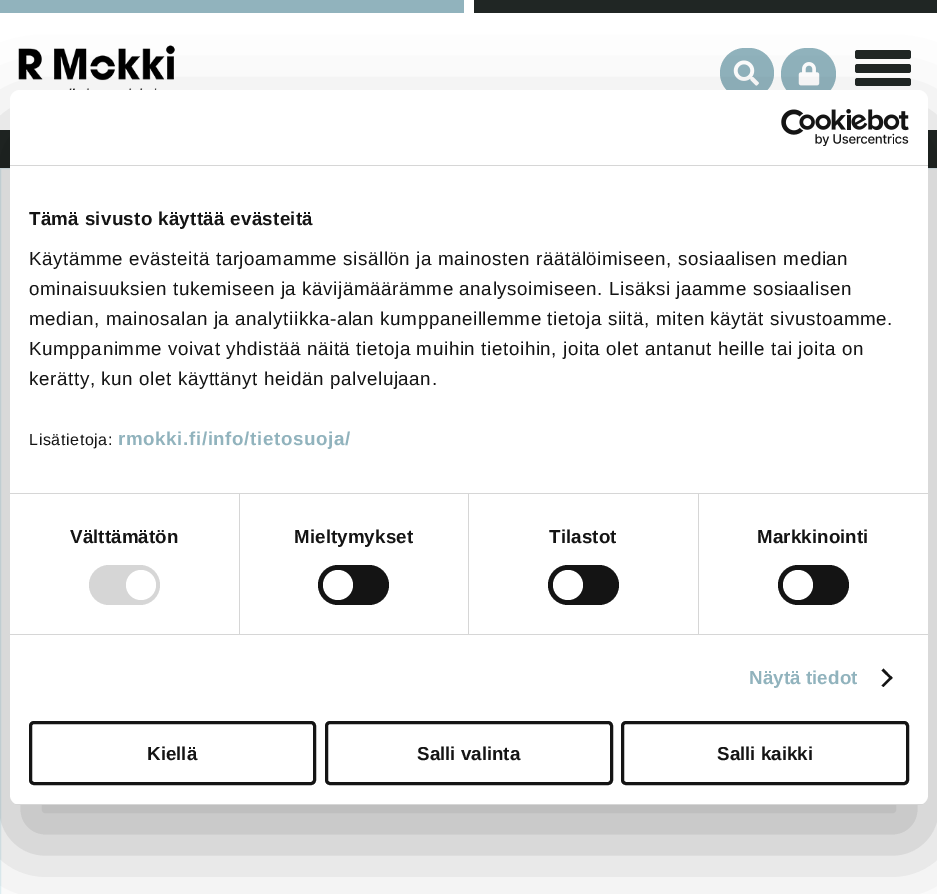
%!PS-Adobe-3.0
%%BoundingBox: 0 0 937 894
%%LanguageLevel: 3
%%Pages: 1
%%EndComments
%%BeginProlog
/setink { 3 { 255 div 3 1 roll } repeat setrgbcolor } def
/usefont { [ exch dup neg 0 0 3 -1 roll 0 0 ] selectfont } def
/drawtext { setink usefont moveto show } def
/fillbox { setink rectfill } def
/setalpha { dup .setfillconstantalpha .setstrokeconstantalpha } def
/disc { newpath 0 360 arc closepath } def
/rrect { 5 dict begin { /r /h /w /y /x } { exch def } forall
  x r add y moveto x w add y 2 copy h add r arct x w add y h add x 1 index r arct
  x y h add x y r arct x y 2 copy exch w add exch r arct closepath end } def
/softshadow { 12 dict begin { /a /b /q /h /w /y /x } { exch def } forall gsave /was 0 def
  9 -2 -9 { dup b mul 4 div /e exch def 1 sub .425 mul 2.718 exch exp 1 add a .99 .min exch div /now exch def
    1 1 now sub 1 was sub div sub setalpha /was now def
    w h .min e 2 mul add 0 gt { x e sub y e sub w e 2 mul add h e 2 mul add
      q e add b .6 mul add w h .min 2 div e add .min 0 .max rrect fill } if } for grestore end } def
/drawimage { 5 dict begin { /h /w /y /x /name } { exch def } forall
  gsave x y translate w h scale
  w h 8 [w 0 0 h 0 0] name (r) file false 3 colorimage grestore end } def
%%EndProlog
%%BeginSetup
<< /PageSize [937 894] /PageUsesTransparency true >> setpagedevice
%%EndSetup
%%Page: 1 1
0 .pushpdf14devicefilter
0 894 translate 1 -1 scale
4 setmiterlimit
0 0 937 894 255 255 255 fillbox
0 0 464 13 145 179 189 fillbox
474 0 463 13 32 38 36 fillbox
(assets/img1.rgb) 18 45 157 45 drawimage
145 179 189 setink
720 48 54 50 25 rrect fill
(assets/img2.rgb) 733 60 26 26 drawimage
781 48 55 52 26 rrect fill
(assets/img3.rgb) 798 62 22 24 drawimage
32 38 36 setink
855 50 56 9 2.5 rrect fill
855 64 56 9 2.5 rrect fill
855 78 56 8 2.5 rrect fill
0 130 937 38 32 38 36 fillbox
226 242 246 setink
0.5 168.5 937 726 rectstroke
0 0 0 setink
10 130 918 715 10 42.5 0.3 softshadow
255 255 255 setink
10 90 918 715 10 rrect fill
10 165 918 1 214 214 214 fillbox
(assets/img4.rgb) 781 109 128 37 drawimage
10 493 918 1 214 214 214 fillbox
/LiberationSans-Bold 18.75 usefont
20 20 20 setink
29 225 moveto 0.3 0 (Tämä sivusto käyttää evästeitä) ashow
/LiberationSans-Regular 18.75 usefont
29 265 moveto 0.62 0 (Käytämme evästeitä tarjoamamme sisällön ja mainosten räätälöimiseen, sosiaalisen median) ashow
29 295 moveto 0.62 0 (ominaisuuksien tukemiseen ja kävijämäärämme analysoimiseen. Lisäksi jaamme sosiaalisen) ashow
29 325 moveto 0.62 0 (median, mainosalan ja analytiikka-alan kumppaneillemme tietoja siitä, miten käytät sivustoamme.) ashow
29 355 moveto 0.62 0 (Kumppanimme voivat yhdistää näitä tietoja muihin tietoihin, joita olet antanut heille tai joita on) ashow
29 385 moveto 0.62 0 (kerätty, kun olet käyttänyt heidän palvelujaan.) ashow
/LiberationSans-Regular 16 usefont
29 445 moveto 0.62 0 (Lisätietoja:) ashow
/LiberationSans-Bold 18.75 usefont
145 179 189 setink
118 445 moveto 0.62 0 (rmokki.fi/info/tietosuoja/) ashow
10 634 918 1 214 214 214 fillbox
239 494 1 140 214 214 214 fillbox
20 20 20 setink
70 543 moveto 0.1 0 (Välttämätön) ashow
214 214 214 setink
89 565 71 40 20 rrect fill
255 255 255 setink
141 585 15 disc fill
468 494 1 140 214 214 214 fillbox
20 20 20 setink
294 543 moveto 0.1 0 (Mieltymykset) ashow
318 565 71 40 20 rrect fill
255 255 255 setink
338 585 15 disc fill
698 494 1 140 214 214 214 fillbox
20 20 20 setink
549 543 moveto 0.1 0 (Tilastot) ashow
548 565 71 40 20 rrect fill
255 255 255 setink
568 585 15 disc fill
20 20 20 setink
757 543 moveto 0.1 0 (Markkinointi) ashow
778 565 71 40 20 rrect fill
255 255 255 setink
798 585 15 disc fill
145 179 189 setink
749 684 moveto 0.1 0 (Näytä tiedot) ashow
20 20 20 setink
883.5 668.5 moveto 892.5 678 lineto 891 679.5 lineto 881.5 670.5 lineto closepath fill
891 676 moveto 892.5 678 lineto 883.5 687 lineto 881.5 685.5 lineto closepath fill
gsave
10 90 918 715 10 rrect clip newpath
10 804 918 1 214 214 214 fillbox
grestore
3 setlinewidth
30.5 722.5 284 61 3.5 rrect stroke
(Kiellä) 147 760 /LiberationSans-Bold 18.75 20 20 20 drawtext
326.5 722.5 285 61 3.5 rrect stroke
(Salli valinta) 417 760 /LiberationSans-Bold 18.75 20 20 20 drawtext
622.5 722.5 285 61 3.5 rrect stroke
(Salli kaikki) 717 760 /LiberationSans-Bold 18.75 20 20 20 drawtext
.poppdf14devicefilter showpage
%%EOF
